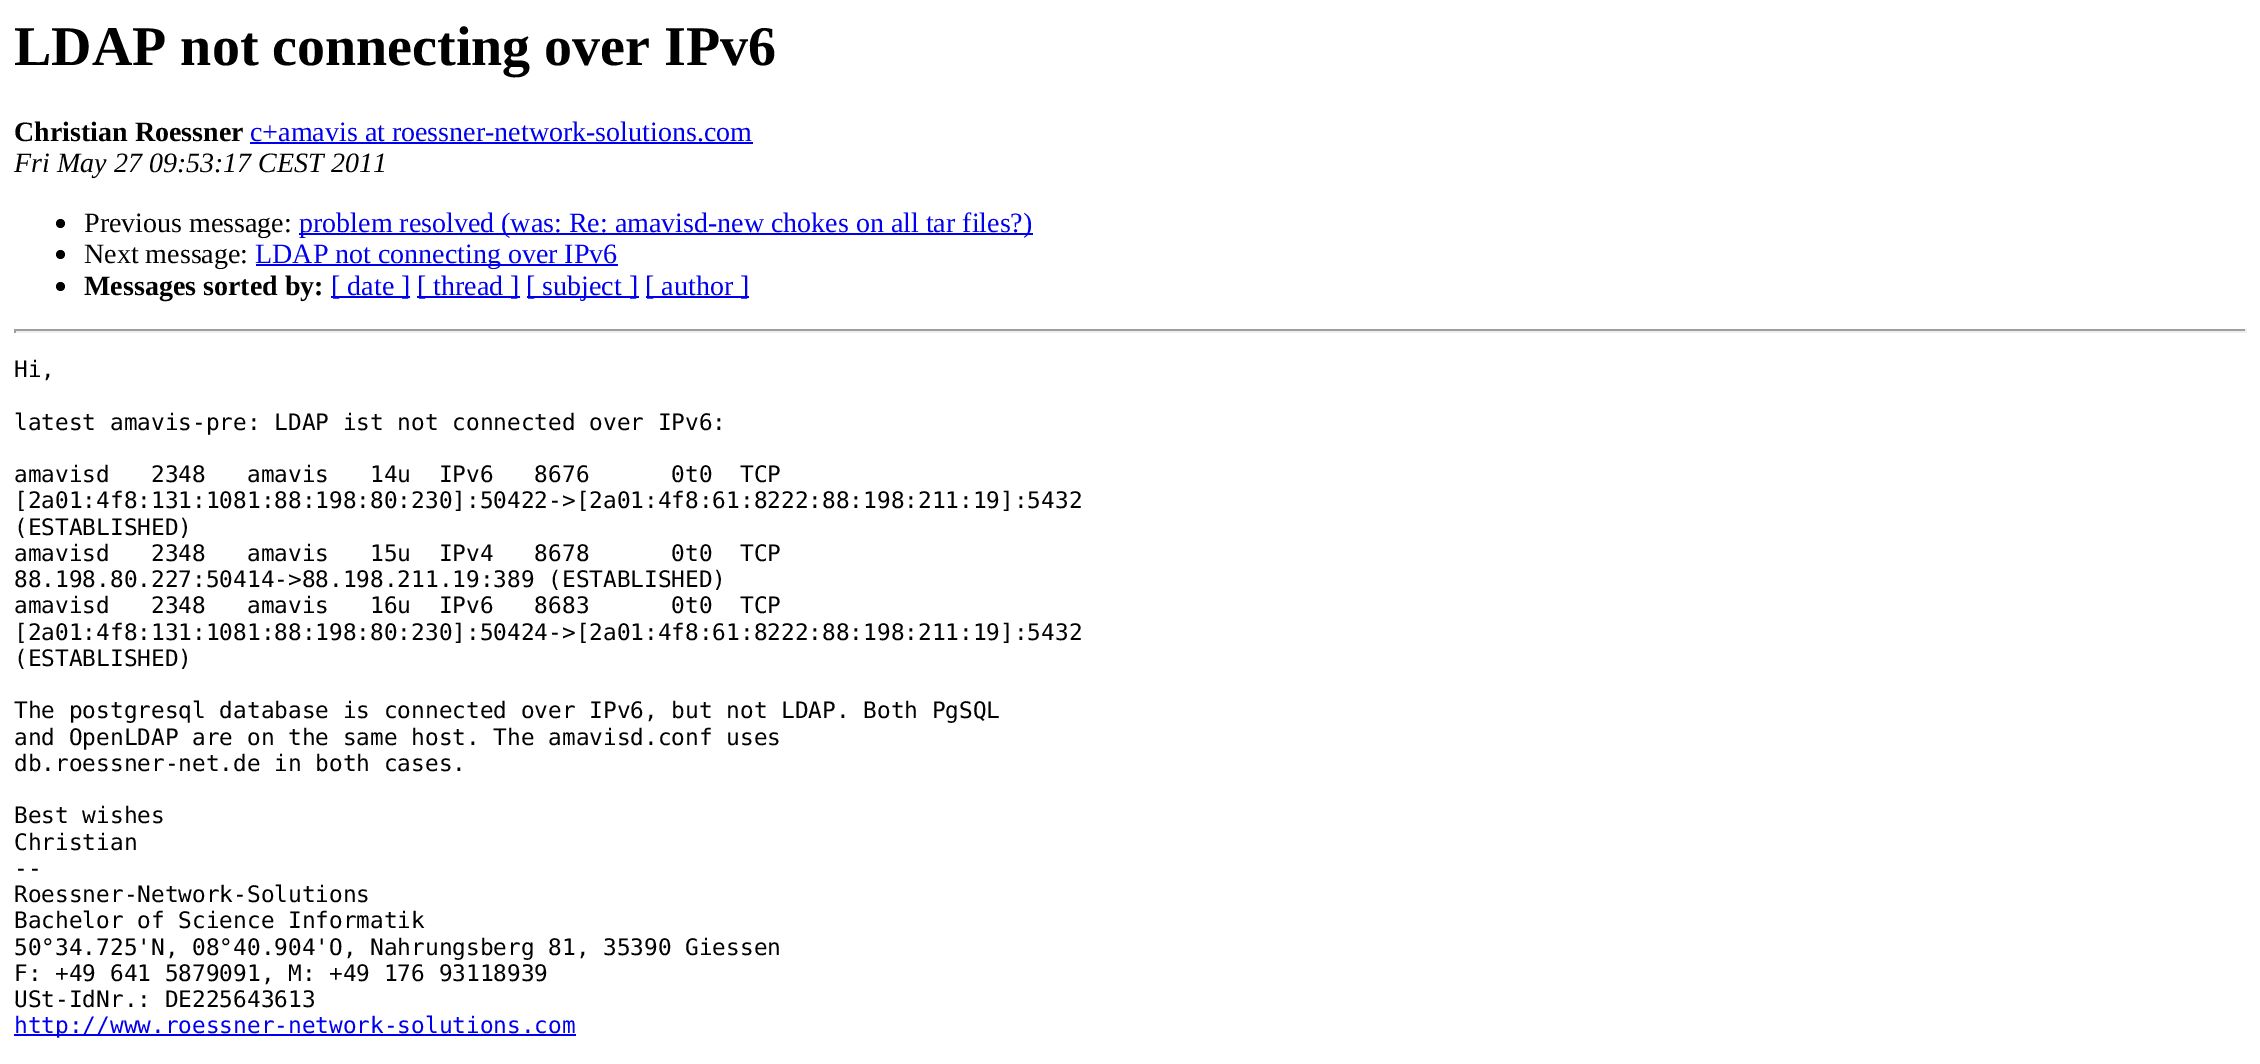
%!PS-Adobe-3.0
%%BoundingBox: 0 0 2260 1064
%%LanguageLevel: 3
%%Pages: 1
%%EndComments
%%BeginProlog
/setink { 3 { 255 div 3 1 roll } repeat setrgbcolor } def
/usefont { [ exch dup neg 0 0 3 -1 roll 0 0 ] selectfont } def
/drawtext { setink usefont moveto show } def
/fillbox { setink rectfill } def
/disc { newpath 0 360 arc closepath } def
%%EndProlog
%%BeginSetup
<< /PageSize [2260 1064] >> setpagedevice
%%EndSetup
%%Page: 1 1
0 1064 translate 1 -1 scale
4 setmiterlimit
0 0 2260 1064 255 255 255 fillbox
(LDAP not connecting over IPv6) 14 65 /LiberationSerif-Bold 56 0 0 0 drawtext
(Christian Roessner) 14 141 /LiberationSerif-Bold 28 0 0 0 drawtext
(c+amavis at roessner-network-solutions.com) 250 141 /LiberationSerif-Regular 28 0 0 238 drawtext
250 142 503 2 0 0 238 fillbox
(Fri May 27 09:53:17 CEST 2011) 14 172 /LiberationSerif-Italic 28 0 0 0 drawtext
60.5 223.5 4.5 disc fill
(Previous message:) 84 232 /LiberationSerif-Regular 28 0 0 0 drawtext
299 233 734 2 0 0 238 fillbox
(problem resolved \(was: Re: amavisd-new chokes on all tar files?\)) 299 232 /LiberationSerif-Regular 28 0 0 238 drawtext
0 0 0 setink
60.5 254.5 4.5 disc fill
(Next message:) 84 263 /LiberationSerif-Regular 28 0 0 0 drawtext
256 264 362 2 0 0 238 fillbox
(LDAP not connecting over IPv6) 255 263 /LiberationSerif-Regular 28 0 0 238 drawtext
0 0 0 setink
60.5 286.5 4.5 disc fill
(Messages sorted by:) 84 295 /LiberationSerif-Bold 28 0 0 0 drawtext
331 296 79 2 0 0 238 fillbox
([ date ]) 331 295 /LiberationSerif-Regular 28 0 0 238 drawtext
417 296 103 2 0 0 238 fillbox
([ thread ]) 417 295 /LiberationSerif-Regular 28 0 0 238 drawtext
527 296 112 2 0 0 238 fillbox
([ subject ]) 526 295 /LiberationSerif-Regular 28 0 0 238 drawtext
646 296 103 2 0 0 238 fillbox
([ author ]) 645 295 /LiberationSerif-Regular 28 0 0 238 drawtext
14 329 2233 2 159 159 159 fillbox
2245 329 2 4 238 238 238 fillbox
14 331 2233 2 238 238 238 fillbox
14 329 2 4 159 159 159 fillbox
(Hi,) 14 377 /DejaVuSansMono-Regular 22.75 0 0 0 drawtext
(latest amavis-pre: LDAP ist not connected over IPv6:) 14 430 /DejaVuSansMono-Regular 22.75 0 0 0 drawtext
(amavisd   2348   amavis   14u  IPv6   8676      0t0  TCP) 14 482 /DejaVuSansMono-Regular 22.75 0 0 0 drawtext
([2a01:4f8:131:1081:88:198:80:230]:50422->[2a01:4f8:61:8222:88:198:211:19]:5432) 14 508 /DejaVuSansMono-Regular 22.75 0 0 0 drawtext
(\(ESTABLISHED\)) 14 535 /DejaVuSansMono-Regular 22.75 0 0 0 drawtext
(amavisd   2348   amavis   15u  IPv4   8678      0t0  TCP) 14 561 /DejaVuSansMono-Regular 22.75 0 0 0 drawtext
(88.198.80.227:50414->88.198.211.19:389 \(ESTABLISHED\)) 14 587 /DejaVuSansMono-Regular 22.75 0 0 0 drawtext
(amavisd   2348   amavis   16u  IPv6   8683      0t0  TCP) 14 613 /DejaVuSansMono-Regular 22.75 0 0 0 drawtext
([2a01:4f8:131:1081:88:198:80:230]:50424->[2a01:4f8:61:8222:88:198:211:19]:5432) 14 640 /DejaVuSansMono-Regular 22.75 0 0 0 drawtext
(\(ESTABLISHED\)) 14 666 /DejaVuSansMono-Regular 22.75 0 0 0 drawtext
(The postgresql database is connected over IPv6, but not LDAP. Both PgSQL) 14 718 /DejaVuSansMono-Regular 22.75 0 0 0 drawtext
(and OpenLDAP are on the same host. The amavisd.conf uses) 14 745 /DejaVuSansMono-Regular 22.75 0 0 0 drawtext
(db.roessner-net.de in both cases.) 14 771 /DejaVuSansMono-Regular 22.75 0 0 0 drawtext
(Best wishes) 14 823 /DejaVuSansMono-Regular 22.75 0 0 0 drawtext
(Christian) 14 850 /DejaVuSansMono-Regular 22.75 0 0 0 drawtext
(--) 14 876 /DejaVuSansMono-Regular 22.75 0 0 0 drawtext
(Roessner-Network-Solutions) 14 902 /DejaVuSansMono-Regular 22.75 0 0 0 drawtext
(Bachelor of Science Informatik) 14 928 /DejaVuSansMono-Regular 22.75 0 0 0 drawtext
(50°34.725'N, 08°40.904'O, Nahrungsberg 81, 35390 Giessen) 14 955 /DejaVuSansMono-Regular 22.75 0 0 0 drawtext
(F: +49 641 5879091, M: +49 176 93118939) 14 981 /DejaVuSansMono-Regular 22.75 0 0 0 drawtext
(USt-IdNr.: DE225643613) 14 1007 /DejaVuSansMono-Regular 22.75 0 0 0 drawtext
14 1034 562 2 0 0 238 fillbox
(http://www.roessner-network-solutions.com) 14 1033 /DejaVuSansMono-Regular 22.75 0 0 238 drawtext
showpage
%%EOF
